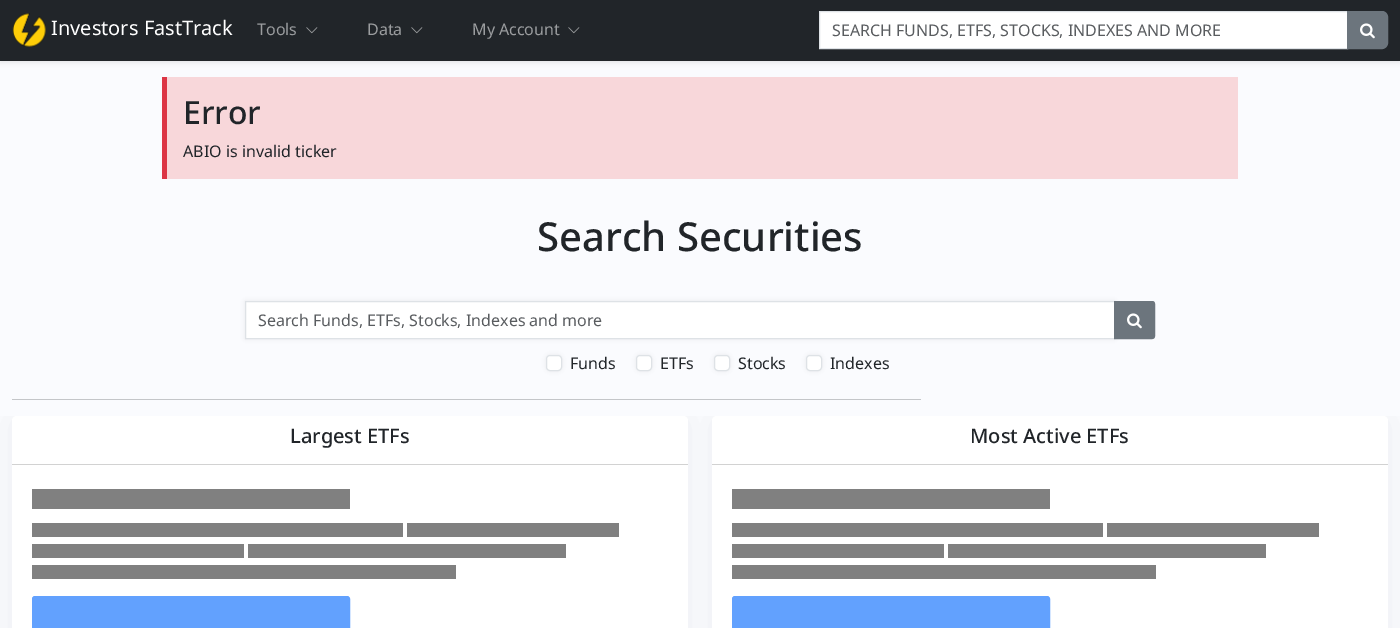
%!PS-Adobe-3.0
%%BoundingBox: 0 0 1400 628
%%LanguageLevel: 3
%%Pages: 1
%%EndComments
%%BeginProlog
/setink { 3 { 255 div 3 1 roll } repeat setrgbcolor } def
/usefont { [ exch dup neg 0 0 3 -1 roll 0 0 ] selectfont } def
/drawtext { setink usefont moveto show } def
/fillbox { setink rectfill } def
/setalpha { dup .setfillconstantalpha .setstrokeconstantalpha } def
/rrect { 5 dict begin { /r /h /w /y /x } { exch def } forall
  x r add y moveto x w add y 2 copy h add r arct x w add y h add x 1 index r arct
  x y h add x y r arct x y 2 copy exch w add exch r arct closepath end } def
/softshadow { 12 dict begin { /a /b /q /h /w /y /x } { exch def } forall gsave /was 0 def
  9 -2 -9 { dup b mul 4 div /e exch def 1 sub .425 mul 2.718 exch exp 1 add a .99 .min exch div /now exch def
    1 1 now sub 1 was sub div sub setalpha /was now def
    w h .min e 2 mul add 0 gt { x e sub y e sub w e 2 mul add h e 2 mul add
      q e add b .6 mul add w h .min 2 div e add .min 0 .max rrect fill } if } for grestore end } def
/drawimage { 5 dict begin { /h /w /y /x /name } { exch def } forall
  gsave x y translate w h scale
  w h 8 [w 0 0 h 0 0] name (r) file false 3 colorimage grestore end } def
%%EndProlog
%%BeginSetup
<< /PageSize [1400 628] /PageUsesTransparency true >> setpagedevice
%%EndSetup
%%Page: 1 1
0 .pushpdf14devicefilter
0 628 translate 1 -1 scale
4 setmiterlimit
0 0 1400 628 250 251 254 fillbox
0 0 0 setink
0 2 1400 61 0 2 0.07 softshadow
0 0 1400 61 33 37 41 fillbox
(assets/img1.rgb) 12 13 34 34 drawimage
(Investors FastTrack) 51 35 /NotoSans-Regular 20 255 255 255 drawtext
(Tools) 257 35 /NotoSans-Regular 16 155 157 159 drawtext
(assets/img2.rgb) 306 27 12 7 drawimage
(Data) 367 35 /NotoSans-Regular 16 155 157 159 drawtext
(assets/img2.rgb) 411 27 12 7 drawimage
(My Account) 472 35 /NotoSans-Regular 16 155 157 159 drawtext
(assets/img2.rgb) 568 27 12 7 drawimage
255 255 255 setink
819.5 11.5 moveto 1347.5 11.5 lineto 1347.5 48.5 lineto 819.5 48.5 lineto closepath gsave fill grestore
222 226 230 setink
stroke
(SEARCH FUNDS, ETFS, STOCKS, INDEXES AND MORE) 832 36 /NotoSans-Regular 16 89 92 95 drawtext
108 117 125 setink
1347.5 11.5 moveto 1382 11.5 lineto 1385 11.5 1387.5 14 1387.5 17 curveto 1387.5 43 lineto 1387.5 46 1385 48.5 1382 48.5 curveto 1347.5 48.5 lineto closepath gsave fill grestore
stroke
(assets/img3.rgb) 1360 23 15 16 drawimage
167 77 1071 102 248 215 218 fillbox
162 77 5 102 220 53 69 fillbox
(Error) 183 124 /NotoSans-Medium 32 33 37 41 drawtext
(ABIO is invalid ticker) 183 157 /NotoSans-Regular 16 33 37 41 drawtext
(Search Securities) 537 251 /NotoSans-Medium 40 33 37 41 drawtext
0 0 0 setink
245 301 870 38 0 2 0.07 softshadow
255 255 255 setink
245.5 301.5 moveto 1114.5 301.5 lineto 1114.5 338.5 lineto 245.5 338.5 lineto closepath gsave fill grestore
222 226 230 setink
stroke
(Search Funds, ETFs, Stocks, Indexes and more) 258 326 /NotoSans-Regular 16 89 92 95 drawtext
108 117 125 setink
1114.5 301.5 moveto 1152 301.5 lineto 1153.5 301.5 1154.5 302.5 1154.5 304 curveto 1154.5 336 lineto 1154.5 337.5 1153.5 338.5 1152 338.5 curveto 1114.5 338.5 lineto closepath gsave fill grestore
stroke
(assets/img3.rgb) 1127 313 15 16 drawimage
0 0 0 setink
546 355 16 16 4 2 0.07 softshadow
255 255 255 setink
546.5 355.5 15 15 3.5 rrect gsave fill grestore
222 226 230 setink
stroke
(Funds) 570 369 /NotoSans-Regular 16 33 37 41 drawtext
0 0 0 setink
636 355 16 16 4 2 0.07 softshadow
255 255 255 setink
636.5 355.5 15 15 3.5 rrect gsave fill grestore
222 226 230 setink
stroke
(ETFs) 660 369 /NotoSans-Regular 16 33 37 41 drawtext
0 0 0 setink
714 355 16 16 4 2 0.07 softshadow
255 255 255 setink
714.5 355.5 15 15 3.5 rrect gsave fill grestore
222 226 230 setink
stroke
(Stocks) 738 369 /NotoSans-Regular 16 33 37 41 drawtext
0 0 0 setink
806 355 16 16 4 2 0.07 softshadow
255 255 255 setink
806.5 355.5 15 15 3.5 rrect gsave fill grestore
222 226 230 setink
stroke
(Indexes) 830 369 /NotoSans-Regular 16 33 37 41 drawtext
12 399 909 1 196 198 201 fillbox
gsave
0 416 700 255 rectclip
154 161 171 setink
12 416 676 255 6 17.5 0.15 softshadow
grestore
255 255 255 setink
12 416 676 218 6 rrect fill
17 416 moveto 683 416 lineto 686 416 688 418 688 421 curveto 688 465 lineto 12 465 lineto 12 421 lineto 12 418 14 416 17 416 curveto closepath fill
12 464 676 1 210 210 210 fillbox
(Largest ETFs) 290 443 /NotoSans-Medium 20 33 37 41 drawtext
32 489 318 20 128 128 128 fillbox
32 523 371 14 128 128 128 fillbox
407 523 212 14 128 128 128 fillbox
32 544 212 14 128 128 128 fillbox
248 544 318 14 128 128 128 fillbox
32 565 424 14 128 128 128 fillbox
98 161 254 setink
32.5 596.5 317 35 2.5 rrect gsave fill grestore
stroke
gsave
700 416 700 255 rectclip
154 161 171 setink
712 416 676 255 6 17.5 0.15 softshadow
grestore
255 255 255 setink
712 416 676 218 6 rrect fill
717 416 moveto 1383 416 lineto 1386 416 1388 418 1388 421 curveto 1388 465 lineto 712 465 lineto 712 421 lineto 712 418 714 416 717 416 curveto closepath fill
712 464 676 1 210 210 210 fillbox
(Most Active ETFs) 970 443 /NotoSans-Medium 20 33 37 41 drawtext
732 489 318 20 128 128 128 fillbox
732 523 371 14 128 128 128 fillbox
1107 523 212 14 128 128 128 fillbox
732 544 212 14 128 128 128 fillbox
948 544 318 14 128 128 128 fillbox
732 565 424 14 128 128 128 fillbox
98 161 254 setink
732.5 596.5 317 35 2.5 rrect gsave fill grestore
stroke
.poppdf14devicefilter showpage
%%EOF
